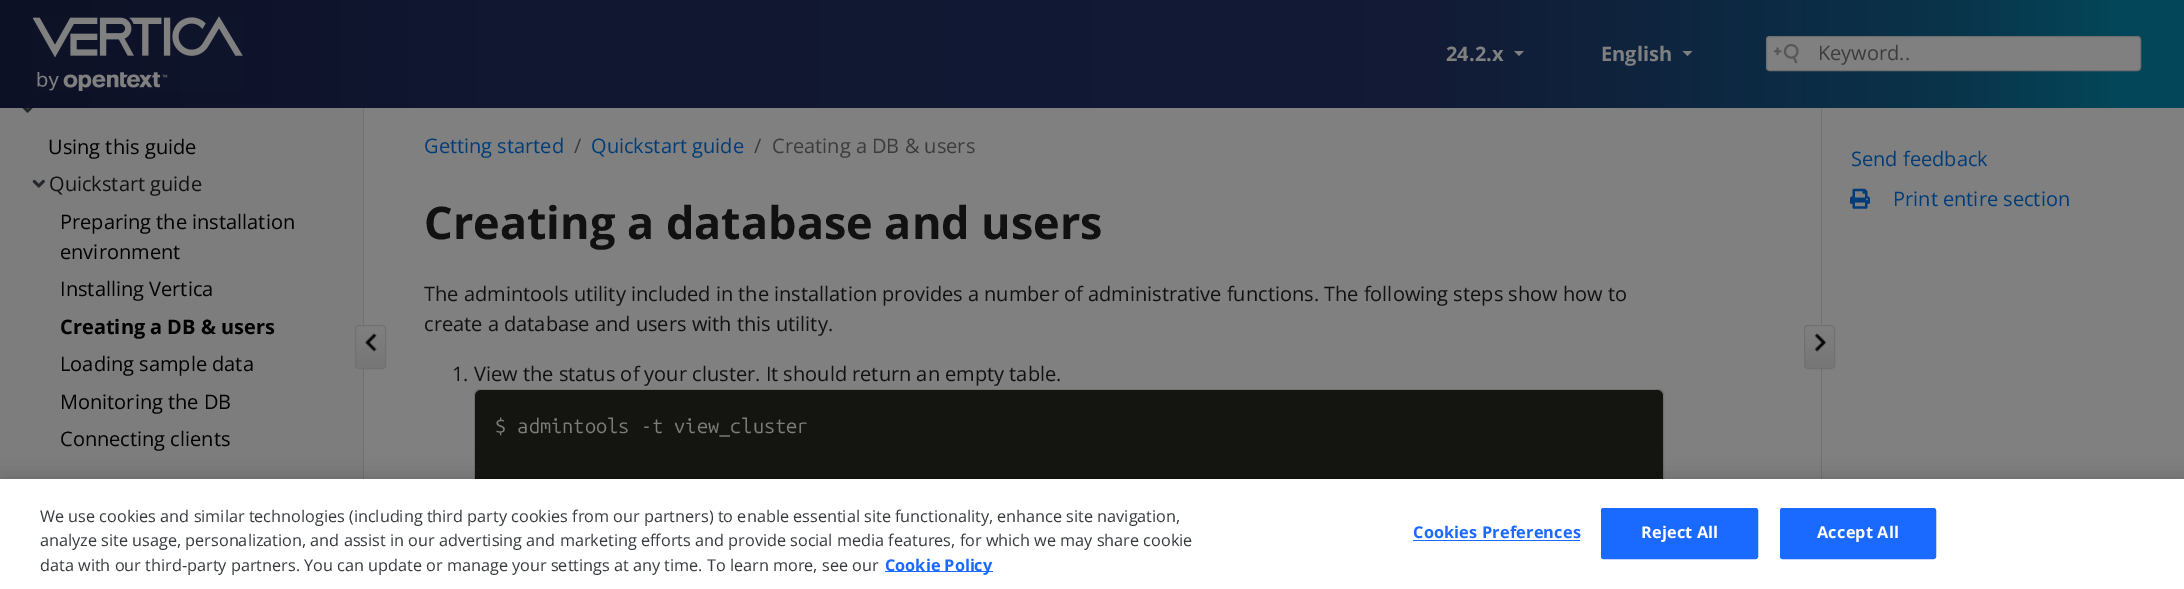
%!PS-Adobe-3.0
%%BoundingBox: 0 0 2184 589
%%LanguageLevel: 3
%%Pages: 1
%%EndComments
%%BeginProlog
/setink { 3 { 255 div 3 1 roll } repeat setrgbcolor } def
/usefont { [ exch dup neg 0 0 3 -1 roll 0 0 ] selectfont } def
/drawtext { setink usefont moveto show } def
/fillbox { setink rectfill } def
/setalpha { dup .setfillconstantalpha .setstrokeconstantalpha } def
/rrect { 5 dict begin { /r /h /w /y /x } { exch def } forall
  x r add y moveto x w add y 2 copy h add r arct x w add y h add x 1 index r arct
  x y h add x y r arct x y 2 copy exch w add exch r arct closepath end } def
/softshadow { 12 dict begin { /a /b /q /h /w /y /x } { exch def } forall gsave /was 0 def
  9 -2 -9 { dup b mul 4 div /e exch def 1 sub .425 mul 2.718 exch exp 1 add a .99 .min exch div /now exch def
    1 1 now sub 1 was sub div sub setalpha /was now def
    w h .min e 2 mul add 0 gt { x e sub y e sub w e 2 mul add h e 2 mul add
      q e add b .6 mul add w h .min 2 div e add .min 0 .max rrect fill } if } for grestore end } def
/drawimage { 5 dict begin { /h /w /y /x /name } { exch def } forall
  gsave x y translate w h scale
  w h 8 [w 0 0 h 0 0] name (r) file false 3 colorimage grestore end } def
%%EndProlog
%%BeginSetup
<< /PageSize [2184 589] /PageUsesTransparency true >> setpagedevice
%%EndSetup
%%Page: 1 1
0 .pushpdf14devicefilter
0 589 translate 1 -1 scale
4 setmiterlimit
0 0 2184 589 128 128 128 fillbox
gsave 0 0 moveto 2184 0 lineto 2184 108 lineto 0 108 lineto closepath clip newpath
<< /ShadingType 2 /ColorSpace /DeviceRGB /Coords [0 54 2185 54] /Extend [true true] /Function << /FunctionType 3 /Domain [0 1] /Functions [<< /FunctionType 2 /Domain [0 1] /C0 [0.051 0.067 0.145] /C1 [0.067 0.09 0.192] /N 1 >> << /FunctionType 2 /Domain [0 1] /C0 [0.067 0.09 0.192] /C1 [0.071 0.102 0.208] /N 1 >> << /FunctionType 2 /Domain [0 1] /C0 [0.071 0.102 0.208] /C1 [0.039 0.2 0.29] /N 1 >> << /FunctionType 2 /Domain [0 1] /C0 [0.039 0.2 0.29] /C1 [0.016 0.275 0.349] /N 1 >> << /FunctionType 2 /Domain [0 1] /C0 [0.016 0.275 0.349] /C1 [0.016 0.275 0.349] /N 1 >>] /Bounds [0.22 0.65 0.89 0.97] /Encode [0 1 0 1 0 1 0 1 0 1] >> >> shfill grestore
(assets/img1.rgb) 33 16 210 75 drawimage
(24.2.x) 1446 61 /OpenSans-Bold 20 128 128 128 drawtext
1514 51 moveto 1524 51 lineto 1519 56 lineto closepath fill
(English) 1601 61 /OpenSans-Bold 20 128 128 128 drawtext
1682.5 51 moveto 1692.5 51 lineto 1687.5 56 lineto closepath fill
1766 36 375 35 4 rrect fill
(assets/img2.rgb) 1774 44 25 20 drawimage
111 111 111 setink
1766.5 36.5 374 34 3.5 rrect stroke
(Keyword..) 1818 60 /OpenSans-Regular 20 61 59 59 drawtext
0 108 363 371 125 125 125 fillbox
363 108 1 371 111 113 115 fillbox
gsave
355 325 31 44 4 rrect clip newpath
gsave 355 326 moveto 386 326 lineto 386 368 lineto 355 368 lineto closepath clip newpath
<< /ShadingType 2 /ColorSpace /DeviceRGB /Coords [371 326 371 368] /Extend [true true] /Function << /FunctionType 2 /Domain [0 1] /C0 [0.502 0.502 0.502] /C1 [0.463 0.463 0.463] /N 1 >> >> shfill grestore
grestore
113 113 113 setink
355.5 325.5 30 43 3.5 rrect stroke
(assets/img3.rgb) 364 333 13 19 drawimage
1821 108 1 371 111 113 115 fillbox
gsave
1804 325 31 44 4 rrect clip newpath
gsave 1804 326 moveto 1835 326 lineto 1835 368 lineto 1804 368 lineto closepath clip newpath
<< /ShadingType 2 /ColorSpace /DeviceRGB /Coords [1819 326 1819 368] /Extend [true true] /Function << /FunctionType 2 /Domain [0 1] /C0 [0.502 0.502 0.502] /C1 [0.463 0.463 0.463] /N 1 >> >> shfill grestore
grestore
113 113 113 setink
1804.5 325.5 30 43 3.5 rrect stroke
(assets/img4.rgb) 1814 333 13 19 drawimage
(assets/img5.rgb) 22 108 11 5 drawimage
(Using this guide) 48 154 /OpenSans-Regular 20 0 0 0 drawtext
(assets/img6.rgb) 32 179 13 9 drawimage
(Quickstart guide) 49 191 /OpenSans-Regular 20 17 17 17 drawtext
(Preparing the installation) 60 229 /OpenSans-Regular 20 0 0 0 drawtext
(environment) 60 259 /OpenSans-Regular 20 0 0 0 drawtext
(Installing Vertica) 60 296 /OpenSans-Regular 20 0 0 0 drawtext
(Creating a DB & users) 60 334 /OpenSans-Bold 20 0 0 0 drawtext
(Loading sample data) 60 371 /OpenSans-Regular 20 0 0 0 drawtext
(Monitoring the DB) 60 409 /OpenSans-Regular 20 0 0 0 drawtext
(Connecting clients) 60 446 /OpenSans-Regular 20 0 0 0 drawtext
(Getting started) 424 153 /OpenSans-Regular 20 0 61 120 drawtext
(/) 574 153 /OpenSans-Regular 20 61 59 59 drawtext
(Quickstart guide) 591 153 /OpenSans-Regular 20 0 61 120 drawtext
(/) 754 153 /OpenSans-Regular 20 61 59 59 drawtext
(Creating a DB & users) 772 153 /OpenSans-Regular 20 61 59 59 drawtext
(Creating a database and users) 424 239 /OpenSans-Bold 45 17 17 17 drawtext
(The admintools utility included in the installation provides a number of administrative functions. The following steps show how to) 424 301 /OpenSans-Regular 20 17 17 17 drawtext
(create a database and users with this utility.) 424 331 /OpenSans-Regular 20 17 17 17 drawtext
(1. View the status of your cluster. It should return an empty table.) 452 381 /OpenSans-Regular 20 17 17 17 drawtext
112 112 112 setink
474.5 389.5 1189 161 4.5 rrect stroke
20 20 17 setink
475 390 1188 160 6 rrect fill
($ admintools -t view_cluster) 495 433 /UbuntuMono-Regular 20 124 124 121 drawtext
(Send feedback) 1851 166 /OpenSans-Regular 20 0 61 120 drawtext
(assets/img7.rgb) 1850 188 20 21 drawimage
(Print entire section) 1893 206 /OpenSans-Regular 20 0 61 120 drawtext
0 0 0 setink
0 479 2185 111 0 11 0.2 softshadow
0 479 2184 110 255 255 255 fillbox
(We use cookies and similar technologies \(including third party cookies from our partners\) to enable essential site functionality, enhance site navigation,) 40 522 /OpenSans-Regular 16.25 53 57 61 drawtext
(analyze site usage, personalization, and assist in our advertising and marketing efforts and provide social media features, for which we may share cookie) 40 546 /OpenSans-Regular 16.25 53 57 61 drawtext
(data with our third-party partners. You can update or manage your settings at any time. To learn more, see our) 40 571 /OpenSans-Regular 16.25 53 57 61 drawtext
885 571 108 1 26 106 255 fillbox
(Cookie Policy) 885 571 /OpenSans-Bold 16.25 26 106 255 drawtext
1413 538 moveto 0.2 0 (Cookies Preferences) ashow
1413 540 167 1 26 106 255 fillbox
1601.5 508.5 156 50 2 rrect gsave fill grestore
stroke
255 255 255 setink
1641 538 moveto 0.2 0 (Reject All) ashow
26 106 255 setink
1780.5 508.5 155 50 2 rrect gsave fill grestore
stroke
255 255 255 setink
1817 538 moveto 0.2 0 (Accept All) ashow
.poppdf14devicefilter showpage
%%EOF
